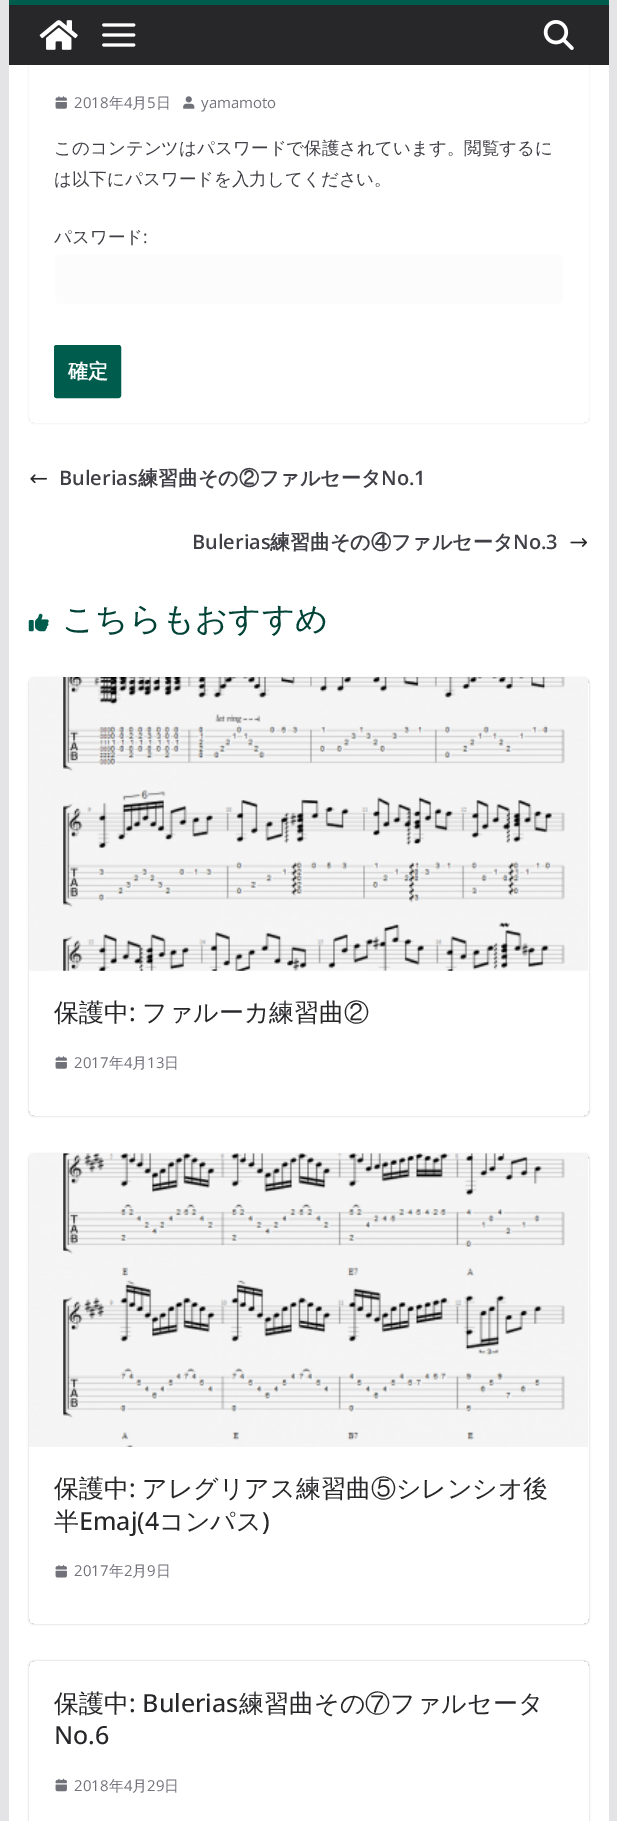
%!PS-Adobe-3.0
%%BoundingBox: 0 0 617 1821
%%LanguageLevel: 3
%%Pages: 1
%%EndComments
%%BeginProlog
/setink { 3 { 255 div 3 1 roll } repeat setrgbcolor } def
/usefont { [ exch dup neg 0 0 3 -1 roll 0 0 ] selectfont } def
/drawtext { setink usefont moveto show } def
/fillbox { setink rectfill } def
/setalpha { dup .setfillconstantalpha .setstrokeconstantalpha } def
/rrect { 5 dict begin { /r /h /w /y /x } { exch def } forall
  x r add y moveto x w add y 2 copy h add r arct x w add y h add x 1 index r arct
  x y h add x y r arct x y 2 copy exch w add exch r arct closepath end } def
/softshadow { 12 dict begin { /a /b /q /h /w /y /x } { exch def } forall gsave /was 0 def
  9 -2 -9 { dup b mul 4 div /e exch def 1 sub .425 mul 2.718 exch exp 1 add a .99 .min exch div /now exch def
    1 1 now sub 1 was sub div sub setalpha /was now def
    w h .min e 2 mul add 0 gt { x e sub y e sub w e 2 mul add h e 2 mul add
      q e add b .6 mul add w h .min 2 div e add .min 0 .max rrect fill } if } for grestore end } def
/drawimage { 5 dict begin { /h /w /y /x /name } { exch def } forall
  gsave x y translate w h scale
  w h 8 [w 0 0 h 0 0] name (r) file false 3 colorimage grestore end } def
%%EndProlog
%%BeginSetup
<< /PageSize [617 1821] /PageUsesTransparency true >> setpagedevice
%%EndSetup
%%Page: 1 1
0 .pushpdf14devicefilter
0 1821 translate 1 -1 scale
4 setmiterlimit
0 0 617 1821 228 228 231 fillbox
9 65 600 1756 255 255 255 fillbox
gsave
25 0 moveto 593 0 lineto 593 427 lineto 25 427 lineto closepath 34 -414 moveto 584 -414 lineto 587 -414 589 -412 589 -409 curveto 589 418 lineto 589 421 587 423 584 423 curveto 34 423 lineto 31 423 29 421 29 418 curveto 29 -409 lineto 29 -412 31 -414 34 -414 curveto closepath eoclip newpath
228 228 231 setink
29 -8 560 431 5 1 1 softshadow
grestore
9 5 600 60 39 39 42 fillbox
9 0 600 5 0 93 77 fillbox
(assets/img1.rgb) 39 20 39 30 drawimage
(assets/img2.rgb) 102 23 34 24 drawimage
(assets/img3.rgb) 543 20 31 30 drawimage
(assets/img4.rgb) 55 96 12 13 drawimage
(2018) 74 108 /OpenSans-Regular 15 113 113 122 drawtext
(年) 109 108 /WenQuanYiZenHei-Medium 15 113 113 122 drawtext
(4) 124 108 /OpenSans-Regular 15 113 113 122 drawtext
(月) 132 108 /WenQuanYiZenHei-Medium 15 113 113 122 drawtext
(5) 147 108 /OpenSans-Regular 15 113 113 122 drawtext
(日) 156 108 /WenQuanYiZenHei-Medium 15 113 113 122 drawtext
(assets/img5.rgb) 183 96 12 13 drawimage
(yamamoto) 201 108 /OpenSans-Regular 15 113 113 122 drawtext
(このコンテンツはパスワードで保護されています。閲覧するに) 54 154 /WenQuanYiZenHei-Medium 17.5 63 63 70 drawtext
(は以下にパスワードを入力してください。) 54 185 /WenQuanYiZenHei-Medium 17.5 63 63 70 drawtext
(パスワード) 54 243 /WenQuanYiZenHei-Medium 17.5 63 63 70 drawtext
(:) 143 243 /OpenSans-Regular 17.5 63 63 70 drawtext
252 252 252 setink
54.5 253.5 509 51 4.5 rrect gsave fill grestore
255 255 255 setink
stroke
0 93 77 setink
54.5 345.5 66 52 2 rrect gsave fill grestore
stroke
(確定) 68 378 /WenQuanYiZenHei-Bold 20 255 255 255 drawtext
(assets/img6.rgb) 30 474 17 10 drawimage
(Bulerias) 59 485 /OpenSans-SemiBold 20 63 63 70 drawtext
(練習曲その②ファルセータ) 138 485 /WenQuanYiZenHei-Bold 20 63 63 70 drawtext
(No.1) 381 485 /OpenSans-SemiBold 20 63 63 70 drawtext
(Bulerias) 192 549 /OpenSans-SemiBold 20 63 63 70 drawtext
(練習曲その④ファルセータ) 270 549 /WenQuanYiZenHei-Bold 20 63 63 70 drawtext
(No.3) 513 549 /OpenSans-SemiBold 20 63 63 70 drawtext
(assets/img7.rgb) 570 538 17 9 drawimage
(assets/img8.rgb) 28 613 21 19 drawimage
(こちらもおすすめ) 62 630 /WenQuanYiZenHei-Medium 32.5 0 66 53 drawtext
gsave
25 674 moveto 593 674 lineto 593 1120 lineto 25 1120 lineto closepath 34 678 moveto 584 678 lineto 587 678 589 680 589 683 curveto 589 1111 lineto 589 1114 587 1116 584 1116 curveto 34 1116 lineto 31 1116 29 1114 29 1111 curveto 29 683 lineto 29 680 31 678 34 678 curveto closepath eoclip newpath
0 0 0 setink
29 678 560 438 5 1 0.24 softshadow
grestore
(assets/img9.rgb) 29 677 559 294 drawimage
(保護中) 54 1021 /WenQuanYiZenHei-Medium 25 39 39 42 drawtext
(:) 129 1021 /OpenSans-Medium 25 39 39 42 drawtext
(ファルーカ練習曲②) 142 1021 /WenQuanYiZenHei-Medium 25 39 39 42 drawtext
(assets/img4.rgb) 55 1056 12 13 drawimage
(2017) 74 1068 /OpenSans-Regular 15 113 113 122 drawtext
(年) 109 1068 /WenQuanYiZenHei-Medium 15 113 113 122 drawtext
(4) 124 1068 /OpenSans-Regular 15 113 113 122 drawtext
(月) 132 1068 /WenQuanYiZenHei-Medium 15 113 113 122 drawtext
(13) 147 1068 /OpenSans-Regular 15 113 113 122 drawtext
(日) 164 1068 /WenQuanYiZenHei-Medium 15 113 113 122 drawtext
gsave
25 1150 moveto 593 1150 lineto 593 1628 lineto 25 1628 lineto closepath 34 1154 moveto 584 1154 lineto 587 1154 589 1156 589 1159 curveto 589 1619 lineto 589 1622 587 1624 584 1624 curveto 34 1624 lineto 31 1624 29 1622 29 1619 curveto 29 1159 lineto 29 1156 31 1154 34 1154 curveto closepath eoclip newpath
0 0 0 setink
29 1154 560 470 5 1 0.24 softshadow
grestore
(assets/img10.rgb) 29 1153 559 294 drawimage
(保護中) 54 1497 /WenQuanYiZenHei-Medium 25 39 39 42 drawtext
(:) 129 1497 /OpenSans-Medium 25 39 39 42 drawtext
(アレグリアス練習曲⑤シレンシオ後) 142 1497 /WenQuanYiZenHei-Medium 25 39 39 42 drawtext
(半) 54 1530 /WenQuanYiZenHei-Medium 25 39 39 42 drawtext
(Emaj\(4) 79 1530 /OpenSans-Medium 25 39 39 42 drawtext
(コンパス) 159 1530 /WenQuanYiZenHei-Medium 25 39 39 42 drawtext
(\)) 262 1530 /OpenSans-Medium 25 39 39 42 drawtext
(assets/img11.rgb) 55 1565 12 13 drawimage
(2017) 74 1576 /OpenSans-Regular 15 113 113 122 drawtext
(年) 109 1576 /WenQuanYiZenHei-Medium 15 113 113 122 drawtext
(2) 124 1576 /OpenSans-Regular 15 113 113 122 drawtext
(月) 132 1576 /WenQuanYiZenHei-Medium 15 113 113 122 drawtext
(9) 147 1576 /OpenSans-Regular 15 113 113 122 drawtext
(日) 156 1576 /WenQuanYiZenHei-Medium 15 113 113 122 drawtext
gsave
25 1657 moveto 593 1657 lineto 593 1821 lineto 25 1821 lineto closepath 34 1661 moveto 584 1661 lineto 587 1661 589 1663 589 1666 curveto 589 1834 lineto 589 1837 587 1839 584 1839 curveto 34 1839 lineto 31 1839 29 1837 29 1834 curveto 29 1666 lineto 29 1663 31 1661 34 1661 curveto closepath eoclip newpath
0 0 0 setink
29 1661 560 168 5 1 0.24 softshadow
grestore
(保護中) 54 1712 /WenQuanYiZenHei-Medium 25 39 39 42 drawtext
(: Bulerias) 129 1712 /OpenSans-Medium 25 39 39 42 drawtext
(練習曲その⑦ファルセータ) 239 1712 /WenQuanYiZenHei-Medium 25 39 39 42 drawtext
(No.6) 54 1744 /OpenSans-Medium 25 39 39 42 drawtext
(assets/img12.rgb) 55 1778 12 14 drawimage
(2018) 74 1791 /OpenSans-Regular 15 113 113 122 drawtext
(年) 109 1791 /WenQuanYiZenHei-Medium 15 113 113 122 drawtext
(4) 124 1791 /OpenSans-Regular 15 113 113 122 drawtext
(月) 132 1791 /WenQuanYiZenHei-Medium 15 113 113 122 drawtext
(29) 147 1791 /OpenSans-Regular 15 113 113 122 drawtext
(日) 164 1791 /WenQuanYiZenHei-Medium 15 113 113 122 drawtext
.poppdf14devicefilter showpage
%%EOF
